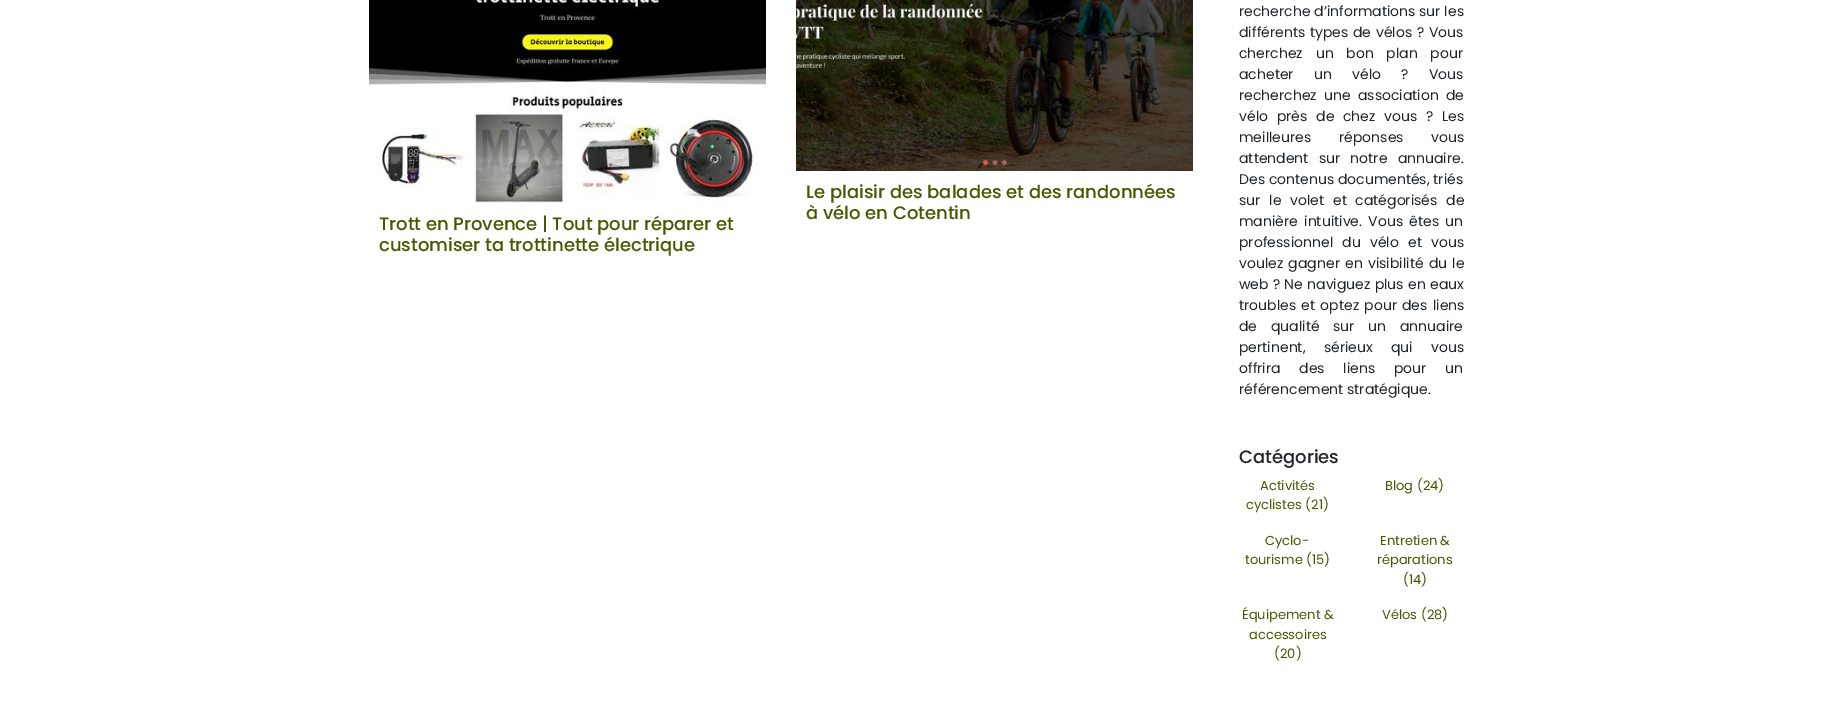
%!PS-Adobe-3.0
%%BoundingBox: 0 0 1847 705
%%LanguageLevel: 3
%%Pages: 1
%%EndComments
%%BeginProlog
/setink { 3 { 255 div 3 1 roll } repeat setrgbcolor } def
/usefont { [ exch dup neg 0 0 3 -1 roll 0 0 ] selectfont } def
/drawtext { setink usefont moveto show } def
/fillbox { setink rectfill } def
/drawimage { 5 dict begin { /h /w /y /x /name } { exch def } forall
  gsave x y translate w h scale
  w h 8 [w 0 0 h 0 0] name (r) file false 3 colorimage grestore end } def
%%EndProlog
%%BeginSetup
<< /PageSize [1847 705] >> setpagedevice
%%EndSetup
%%Page: 1 1
0 705 translate 1 -1 scale
4 setmiterlimit
0 0 1847 705 255 255 255 fillbox
(assets/img1.rgb) 796 0 397 171 drawimage
(Le plaisir des balades et des randonnées) 806 198 /Poppins-Medium 18 70 89 2 drawtext
(à vélo en Cotentin) 806 219 /Poppins-Medium 18 70 89 2 drawtext
(assets/img2.rgb) 369 0 397 203 drawimage
(Trott en Provence | Tout pour réparer et) 379 230 /Poppins-Medium 18 70 89 2 drawtext
(customiser ta trottinette électrique) 379 251 /Poppins-Medium 18 70 89 2 drawtext
(recherche d’informations sur les) 1239 16 /Poppins-Regular 14 33 37 41 drawtext
1239 37 moveto 1 0 32 (différents types de vélos ? Vous) widthshow
1239 58 moveto 9 0 32 (cherchez un bon plan pour) widthshow
1239 79 moveto 16.5 0 32 (acheter un vélo ? Vous) widthshow
1239 100 moveto 3.5 0 32 (recherchez une association de) widthshow
1239 121 moveto 5 0 32 (vélo près de chez vous ? Les) widthshow
1239 142 moveto 24 0 32 (meilleures réponses vous) widthshow
1239 163 moveto 6.5 0 32 (attendent sur notre annuaire.) widthshow
(Des contenus documentés, triés) 1239 184 /Poppins-Regular 14 33 37 41 drawtext
1239 205 moveto 5 0 32 (sur le volet et catégorisés de) widthshow
1239 226 moveto 2.5 0 32 (manière intuitive. Vous êtes un) widthshow
1239 247 moveto 5.5 0 32 (professionnel du vélo et vous) widthshow
1239 268 moveto 1.5 0 32 (voulez gagner en visibilité du le) widthshow
1239 289 moveto 0.5 0 32 (web ? Ne naviguez plus en eaux) widthshow
1239 310 moveto 1.5 0 32 (troubles et optez pour des liens) widthshow
1239 331 moveto 10 0 32 (de qualité sur un annuaire) widthshow
1239 352 moveto 14.5 0 32 (pertinent, sérieux qui vous) widthshow
1239 373 moveto 15 0 32 (offrira des liens pour un) widthshow
(référencement stratégique.) 1239 394 /Poppins-Regular 14 33 37 41 drawtext
(Catégories) 1239 463 /Poppins-Medium 18 33 37 41 drawtext
(Activités) 1260 490 /Poppins-Regular 13 70 89 2 drawtext
(cyclistes \(21\)) 1246 509 /Poppins-Regular 13 70 89 2 drawtext
(Blog \(24\)) 1385 490 /Poppins-Regular 13 70 89 2 drawtext
(Cyclo-) 1265 545 /Poppins-Regular 13 70 89 2 drawtext
(tourisme \(15\)) 1245 564 /Poppins-Regular 13 70 89 2 drawtext
(Entretien &) 1380 545 /Poppins-Regular 13 70 89 2 drawtext
(réparations) 1377 564 /Poppins-Regular 13 70 89 2 drawtext
(\(14\)) 1403 584 /Poppins-Regular 13 70 89 2 drawtext
(Équipement &) 1242 619 /Poppins-Regular 13 70 89 2 drawtext
(accessoires) 1249 639 /Poppins-Regular 13 70 89 2 drawtext
(\(20\)) 1274 658 /Poppins-Regular 13 70 89 2 drawtext
(Vélos \(28\)) 1382 619 /Poppins-Regular 13 70 89 2 drawtext
showpage
%%EOF
